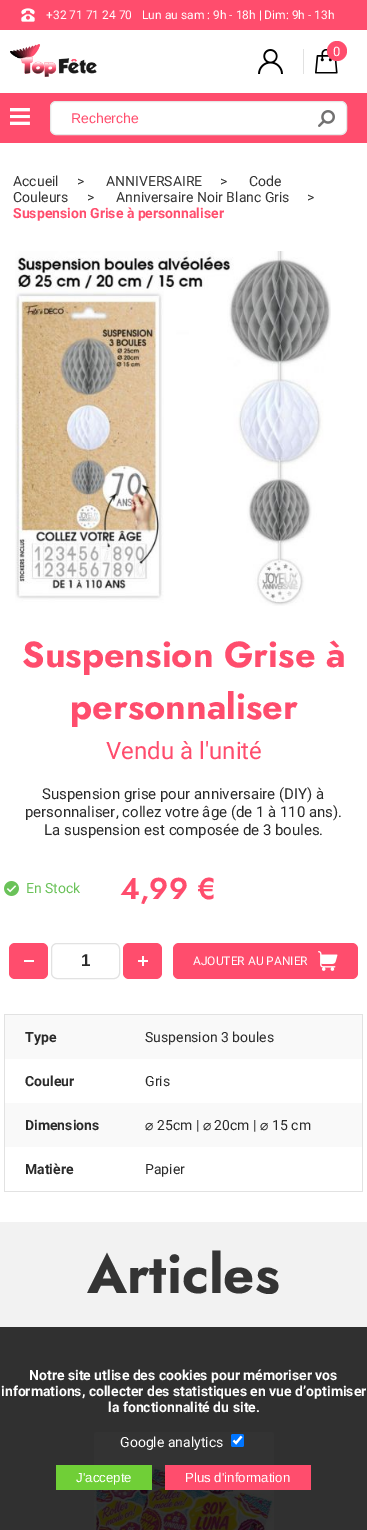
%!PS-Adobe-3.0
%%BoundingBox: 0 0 367 1530
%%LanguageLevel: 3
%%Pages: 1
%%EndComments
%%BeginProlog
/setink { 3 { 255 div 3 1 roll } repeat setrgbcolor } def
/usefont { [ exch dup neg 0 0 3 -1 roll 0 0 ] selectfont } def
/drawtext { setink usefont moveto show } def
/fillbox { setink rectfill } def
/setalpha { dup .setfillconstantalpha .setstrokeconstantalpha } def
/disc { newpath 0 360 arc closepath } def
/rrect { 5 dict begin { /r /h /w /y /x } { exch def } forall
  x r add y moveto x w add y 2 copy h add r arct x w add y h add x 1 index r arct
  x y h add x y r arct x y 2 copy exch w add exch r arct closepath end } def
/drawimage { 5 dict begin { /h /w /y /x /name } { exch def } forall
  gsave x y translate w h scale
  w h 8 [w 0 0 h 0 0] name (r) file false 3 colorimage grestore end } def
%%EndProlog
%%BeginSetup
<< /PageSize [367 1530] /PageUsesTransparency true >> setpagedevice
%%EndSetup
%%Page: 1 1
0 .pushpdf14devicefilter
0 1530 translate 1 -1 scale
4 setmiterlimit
0 0 367 1530 255 255 255 fillbox
0 0 367 30 255 77 109 fillbox
(assets/img1.rgb) 21 8 14 14 drawimage
(+32 71 71 24 70) 46 19 /Roboto-Regular 12 255 255 255 drawtext
(Lun au sam : 9h - 18h | Dim: 9h - 13h) 142 19 /Roboto-Regular 12 255 255 255 drawtext
(assets/img2.rgb) 10 44 87 33 drawimage
303 49 1 25 225 225 225 fillbox
(assets/img3.rgb) 258 49 25 25 drawimage
(assets/img4.rgb) 315 49 23 25 drawimage
255 77 109 setink
337 51 10 disc fill
(0) 333 56 /Roboto-Regular 13 255 255 255 drawtext
0 93 367 50 255 77 109 fillbox
(assets/img5.rgb) 10 108 20 17 drawimage
255 255 255 setink
50.5 101.5 296 33 5.5 rrect gsave fill grestore
231 231 231 setink
stroke
(Recherche) 71 123 /LiberationSans-Regular 14 255 77 109 drawtext
(assets/img6.rgb) 318 110 17 17 drawimage
(Accueil) 13 186 /Roboto-Regular 14 52 52 52 drawtext
(>) 77 186 /Roboto-Regular 14 52 52 52 drawtext
(ANNIVERSAIRE) 106 186 /Roboto-Regular 14 52 52 52 drawtext
(>) 220 186 /Roboto-Regular 14 52 52 52 drawtext
(Code) 249 186 /Roboto-Regular 14 52 52 52 drawtext
(Couleurs) 13 202 /Roboto-Regular 14 52 52 52 drawtext
(>) 87 202 /Roboto-Regular 14 52 52 52 drawtext
(Anniversaire Noir Blanc Gris) 116 202 /Roboto-Regular 14 52 52 52 drawtext
(>) 307 202 /Roboto-Regular 14 52 52 52 drawtext
(Suspension Grise à personnaliser) 13 218 /Roboto-Bold 14 255 77 109 drawtext
(assets/img7.rgb) 15 251 316 355 drawimage
(Suspension Grise à) 22 667 /Jost-Bold 36 255 77 109 drawtext
(personnaliser) 70 719 /Jost-Bold 36 255 77 109 drawtext
(Vendu à l'unité) 106 759 /Roboto-Regular 24 255 77 109 drawtext
(Suspension grise pour anniversaire \(DIY\) à) 42 799 /Roboto-Regular 15 42 42 42 drawtext
(personnaliser, collez votre âge \(de 1 à 110 ans\).) 25 817 /Roboto-Regular 15 42 42 42 drawtext
(La suspension est composée de 3 boules.) 44 835 /Roboto-Regular 15 42 42 42 drawtext
(assets/img8.rgb) 4 881 15 15 drawimage
(En Stock) 26 893 /Roboto-Regular 14 106 194 89 drawtext
(4,99 €) 120 899 /Jost-SemiBold 30 255 77 109 drawtext
9 943 39 36 6 rrect fill
24 960 10 2 255 255 255 fillbox
226 226 226 setink
51.5 943.5 68 35 5.5 rrect stroke
(1) 81 966 /LiberationSans-Bold 17 42 42 42 drawtext
255 77 109 setink
123 943 39 36 6 rrect fill
138 960 10 2 255 255 255 fillbox
142 956 2 10 255 255 255 fillbox
255 77 109 setink
173 943 185 36 6 rrect fill
(AJOUTER AU PANIER) 193 965 /Roboto-Regular 12 255 255 255 drawtext
(assets/img9.rgb) 318 951 20 20 drawimage
4 1014 359 1 226 226 226 fillbox
362 1014 1 178 226 226 226 fillbox
4 1191 359 1 226 226 226 fillbox
4 1014 1 178 226 226 226 fillbox
5 1015 357 44 249 249 249 fillbox
(Type) 25 1042 /Roboto-Bold 14 42 42 42 drawtext
(Suspension 3 boules) 145 1042 /Roboto-Regular 14 42 42 42 drawtext
(Couleur) 25 1086 /Roboto-Bold 14 42 42 42 drawtext
(Gris) 145 1086 /Roboto-Regular 14 42 42 42 drawtext
5 1103 357 44 249 249 249 fillbox
(Dimensions) 25 1130 /Roboto-Bold 14 42 42 42 drawtext
(⌀) 145 1130 /DejaVuSans-Regular 14 42 42 42 drawtext
(25cm |) 157 1130 /Roboto-Regular 14 42 42 42 drawtext
(⌀) 203 1130 /DejaVuSans-Regular 14 42 42 42 drawtext
(20cm |) 214 1130 /Roboto-Regular 14 42 42 42 drawtext
(⌀) 260 1130 /DejaVuSans-Regular 14 42 42 42 drawtext
(15 cm) 272 1130 /Roboto-Regular 14 42 42 42 drawtext
(Matière) 25 1174 /Roboto-Bold 14 42 42 42 drawtext
(Papier) 145 1174 /Roboto-Regular 14 42 42 42 drawtext
0 1222 367 308 242 242 242 fillbox
(Articles) 87 1293 /Jost-Bold 54.5 52 52 52 drawtext
255 255 255 setink
94 1432 180 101 3 rrect fill
(assets/img10.rgb) 94 1467 180 63 drawimage
0.8 setalpha
0 1327 367 203 0 0 0 fillbox
1 setalpha
(Notre site utlise des cookies pour mémoriser vos) 29 1380 /Roboto-Bold 14 255 255 255 drawtext
(informations, collecter des statistiques en vue d’optimiser) 1 1396 /Roboto-Bold 14 255 255 255 drawtext
(la fonctionnalité du site.) 108 1412 /Roboto-Bold 14 255 255 255 drawtext
(Google analytics) 120 1447 /Roboto-Regular 14 255 255 255 drawtext
0 117 255 setink
231 1434 13 13 2 rrect fill
255 255 255 setink
2.1 setlinewidth
233.5 1440.5 moveto 236 1443 lineto 241.5 1436.5 lineto stroke
56 1465 96 25 112 207 55 fillbox
(J'accepte) 76 1482 /LiberationSans-Regular 13.25 255 255 255 drawtext
165 1465 146 25 255 77 109 fillbox
(Plus d'information) 185 1482 /LiberationSans-Regular 13.25 255 255 255 drawtext
.poppdf14devicefilter showpage
%%EOF
